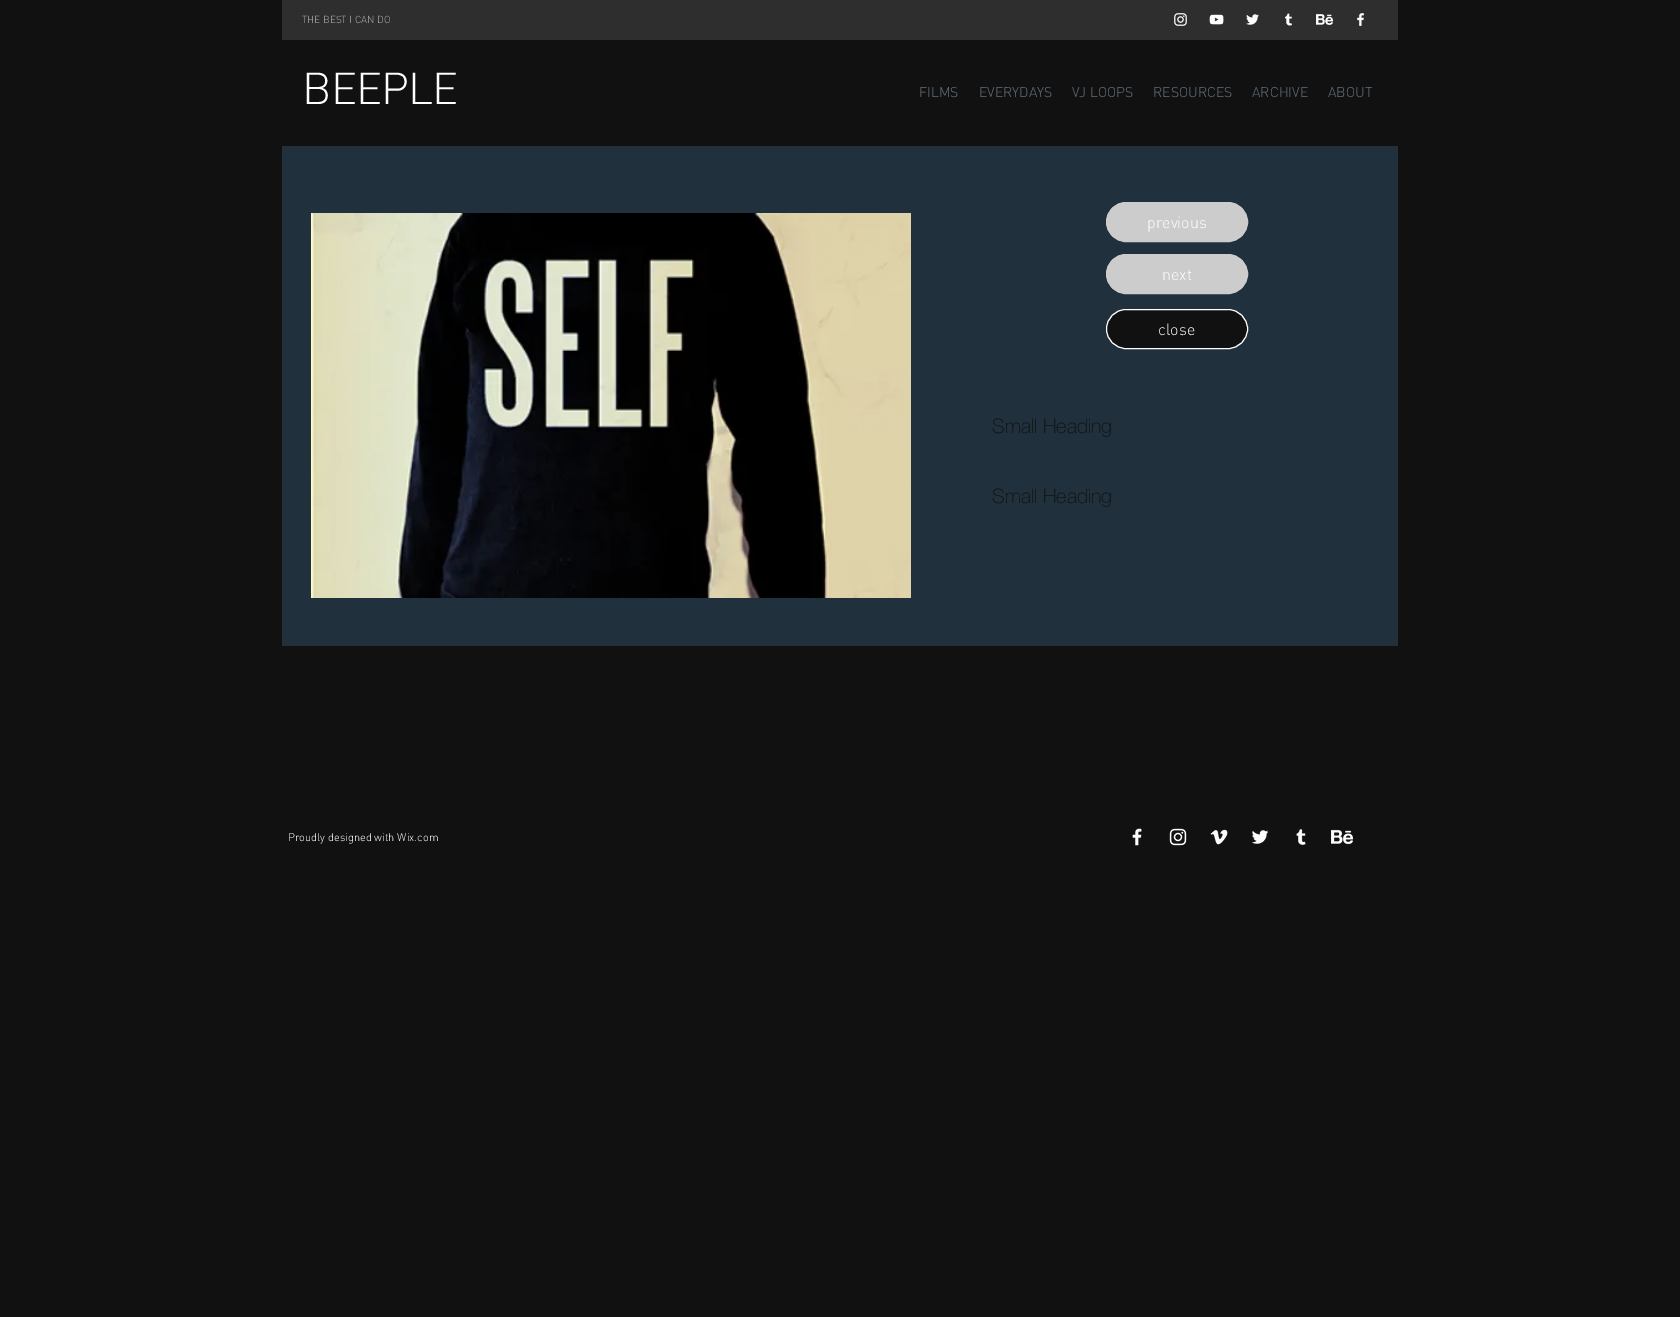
%!PS-Adobe-3.0
%%BoundingBox: 0 0 1680 1317
%%LanguageLevel: 3
%%Pages: 1
%%EndComments
%%BeginProlog
/setink { 3 { 255 div 3 1 roll } repeat setrgbcolor } def
/usefont { [ exch dup neg 0 0 3 -1 roll 0 0 ] selectfont } def
/drawtext { setink usefont moveto show } def
/fillbox { setink rectfill } def
/rrect { 5 dict begin { /r /h /w /y /x } { exch def } forall
  x r add y moveto x w add y 2 copy h add r arct x w add y h add x 1 index r arct
  x y h add x y r arct x y 2 copy exch w add exch r arct closepath end } def
/drawimage { 5 dict begin { /h /w /y /x /name } { exch def } forall
  gsave x y translate w h scale
  w h 8 [w 0 0 h 0 0] name (r) file false 3 colorimage grestore end } def
%%EndProlog
%%BeginSetup
<< /PageSize [1680 1317] >> setpagedevice
%%EndSetup
%%Page: 1 1
0 1317 translate 1 -1 scale
4 setmiterlimit
0 0 1680 1317 17 17 17 fillbox
282 0 1116 40 47 46 46 fillbox
(THE BEST I CAN DO) 302 23 /DIN-Light 10 163 171 176 drawtext
(assets/img1.rgb) 1174 13 13 13 drawimage
(assets/img2.rgb) 1209 14 15 11 drawimage
(assets/img3.rgb) 1246 14 13 11 drawimage
(assets/img4.rgb) 1285 13 7 13 drawimage
(assets/img5.rgb) 1316 14 17 11 drawimage
(assets/img6.rgb) 1357 13 7 13 drawimage
/DIN-Light 44 usefont
255 255 255 setink
302 104 moveto -1 0 (BEEPLE) ashow
(FILMS) 919 97 /DIN-Light 14 102 115 124 drawtext
(EVERYDAYS) 979 97 /DIN-Light 14 102 115 124 drawtext
(VJ LOOPS) 1072 97 /DIN-Light 14 102 115 124 drawtext
(RESOURCES) 1153 97 /DIN-Light 14 102 115 124 drawtext
(ARCHIVE) 1252 97 /DIN-Light 14 102 115 124 drawtext
(ABOUT) 1328 97 /DIN-Light 14 102 115 124 drawtext
282 146 1116 500 32 48 60 fillbox
(assets/img7.rgb) 311 213 600 385 drawimage
204 204 204 setink
1106.5 202.5 141 39 19.5 rrect gsave fill grestore
stroke
(previous) 1147 228 /DIN-Light 16 255 255 255 drawtext
204 204 204 setink
1106.5 254.5 141 39 19.5 rrect gsave fill grestore
stroke
(next) 1162 280 /DIN-Light 16 255 255 255 drawtext
17 17 17 setink
1106.5 309.5 141 39 19.5 rrect gsave fill grestore
255 255 255 setink
stroke
(close) 1158 335 /DIN-Light 16 255 255 255 drawtext
(Small Heading) 992 433 /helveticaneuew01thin-Thin 20 17 17 17 drawtext
(Small Heading) 992 503 /helveticaneuew01thin-Thin 20 17 17 17 drawtext
(Proudly designed with Wix.com) 288 841 /DIN-Light 11 255 255 255 drawtext
(assets/img8.rgb) 1132 828 10 18 drawimage
(assets/img9.rgb) 1169 828 18 18 drawimage
(assets/img10.rgb) 1210 829 18 16 drawimage
(assets/img11.rgb) 1252 830 17 14 drawimage
(assets/img12.rgb) 1296 829 10 16 drawimage
(assets/img13.rgb) 1331 829 22 16 drawimage
showpage
%%EOF
